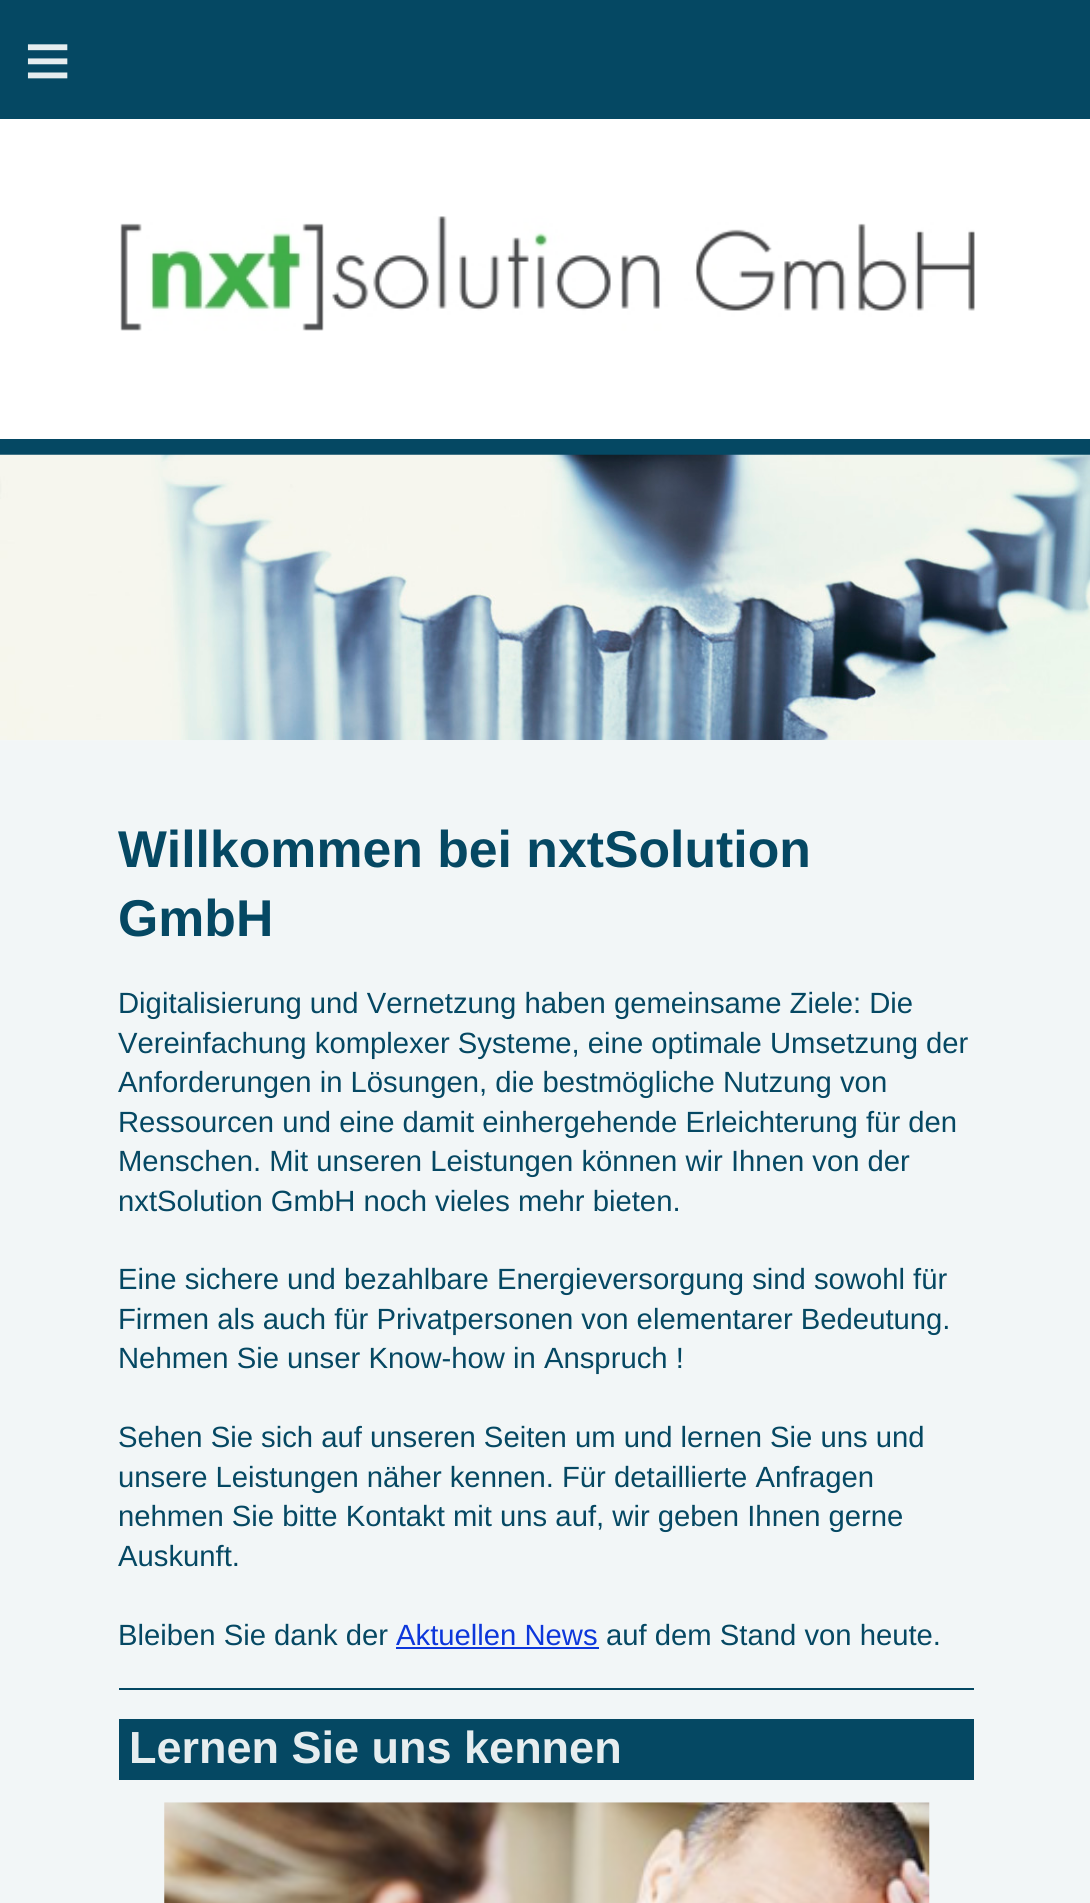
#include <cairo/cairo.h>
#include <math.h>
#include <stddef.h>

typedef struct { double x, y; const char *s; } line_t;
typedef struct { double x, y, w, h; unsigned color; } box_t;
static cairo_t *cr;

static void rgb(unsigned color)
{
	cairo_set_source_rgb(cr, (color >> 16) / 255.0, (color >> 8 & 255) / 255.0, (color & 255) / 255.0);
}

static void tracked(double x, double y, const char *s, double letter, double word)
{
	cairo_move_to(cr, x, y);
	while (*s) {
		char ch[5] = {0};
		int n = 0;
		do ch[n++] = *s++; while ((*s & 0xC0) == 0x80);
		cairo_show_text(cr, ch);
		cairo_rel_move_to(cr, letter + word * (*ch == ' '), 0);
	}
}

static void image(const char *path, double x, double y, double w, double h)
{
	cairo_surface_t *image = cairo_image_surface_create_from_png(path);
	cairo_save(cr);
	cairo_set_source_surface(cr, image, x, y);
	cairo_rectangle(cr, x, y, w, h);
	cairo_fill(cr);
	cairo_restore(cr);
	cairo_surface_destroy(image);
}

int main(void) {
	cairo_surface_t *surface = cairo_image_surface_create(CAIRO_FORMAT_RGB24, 1090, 1903);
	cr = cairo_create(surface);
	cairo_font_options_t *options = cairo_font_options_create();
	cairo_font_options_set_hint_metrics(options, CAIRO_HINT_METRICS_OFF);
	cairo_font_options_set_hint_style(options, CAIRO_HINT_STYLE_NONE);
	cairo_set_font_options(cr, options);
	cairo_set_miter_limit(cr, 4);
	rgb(0xf2f6f7);
	cairo_paint(cr);
	{
		static const box_t items[] = {
			{0, 0, 1090, 119, 0x054863},
			{0, 119, 1090, 320, 0xffffff},
			{0, 439, 1090, 16, 0x054863},
		};
		for (size_t i = 0; i < sizeof items / sizeof *items; i++) {
			rgb(items[i].color);
			cairo_rectangle(cr, items[i].x, items[i].y, items[i].w, items[i].h);
			cairo_fill(cr);
		}
	}
	image("img/1.png", 120, 216, 855, 115);
	image("img/2.png", 0, 454, 1090, 287);
	{
		static const box_t items[] = {
			{231, 740, 594, 1, 0xf2f6f7},
			{396, 1647, 203, 2, 0x0d37db},
			{119, 1688, 855, 2, 0x054863},
			{119, 1719, 855, 61, 0x054863},
		};
		for (size_t i = 0; i < sizeof items / sizeof *items; i++) {
			rgb(items[i].color);
			cairo_rectangle(cr, items[i].x, items[i].y, items[i].w, items[i].h);
			cairo_fill(cr);
		}
	}
	image("img/3.png", 164, 1802, 766, 101);
	cairo_select_font_face(cr, "Liberation Sans", CAIRO_FONT_SLANT_NORMAL, CAIRO_FONT_WEIGHT_NORMAL);
	cairo_set_font_size(cr, 81);
	rgb(0xe6edef);
	tracked(24, 88, "≡", 24, 0);
	cairo_select_font_face(cr, "Liberation Sans", CAIRO_FONT_SLANT_NORMAL, CAIRO_FONT_WEIGHT_BOLD);
	cairo_set_font_size(cr, 51.75);
	rgb(0x054863);
	cairo_move_to(cr, 118, 867);
	cairo_show_text(cr, "Willkommen bei nxtSolution");
	cairo_move_to(cr, 118, 936);
	cairo_show_text(cr, "GmbH");
	cairo_select_font_face(cr, "Liberation Sans", CAIRO_FONT_SLANT_NORMAL, CAIRO_FONT_WEIGHT_NORMAL);
	cairo_set_font_size(cr, 29.25);
	{
		static const line_t items[] = {
			{118, 1013, "Digitalisierung und Vernetzung haben gemeinsame Ziele: Die"},
			{118, 1053, "Vereinfachung komplexer Systeme, eine optimale Umsetzung der"},
			{118, 1092, "Anforderungen in Lösungen, die bestmögliche Nutzung von"},
			{118, 1132, "Ressourcen und eine damit einhergehende Erleichterung für den"},
			{118, 1171, "Menschen. Mit unseren Leistungen können wir Ihnen von der"},
			{118, 1211, "nxtSolution GmbH noch vieles mehr bieten."},
			{118, 1289, "Eine sichere und bezahlbare Energieversorgung sind sowohl für"},
			{118, 1329, "Firmen als auch für Privatpersonen von elementarer Bedeutung."},
			{118, 1368, "Nehmen Sie unser Know-how in Anspruch !"},
			{118, 1447, "Sehen Sie sich auf unseren Seiten um und lernen Sie uns und"},
			{118, 1487, "unsere Leistungen näher kennen. Für detaillierte Anfragen"},
			{118, 1526, "nehmen Sie bitte Kontakt mit uns auf, wir geben Ihnen gerne"},
			{118, 1566, "Auskunft."},
			{118, 1645, "Bleiben Sie dank der"},
		};
		for (size_t i = 0; i < sizeof items / sizeof *items; i++) {
			cairo_move_to(cr, items[i].x, items[i].y);
			cairo_show_text(cr, items[i].s);
		}
	}
	rgb(0x0d37db);
	cairo_move_to(cr, 396, 1645);
	cairo_show_text(cr, "Aktuellen News");
	rgb(0x054863);
	cairo_move_to(cr, 606, 1645);
	cairo_show_text(cr, "auf dem Stand von heute.");
	cairo_select_font_face(cr, "Liberation Sans", CAIRO_FONT_SLANT_NORMAL, CAIRO_FONT_WEIGHT_BOLD);
	cairo_set_font_size(cr, 45);
	rgb(0xe6edef);
	cairo_move_to(cr, 129, 1763);
	cairo_show_text(cr, "Lernen Sie uns kennen");
	cairo_surface_write_to_png(surface, "page.png");
	cairo_font_options_destroy(options);
	cairo_destroy(cr);
	cairo_surface_destroy(surface);
	return 0;
}
